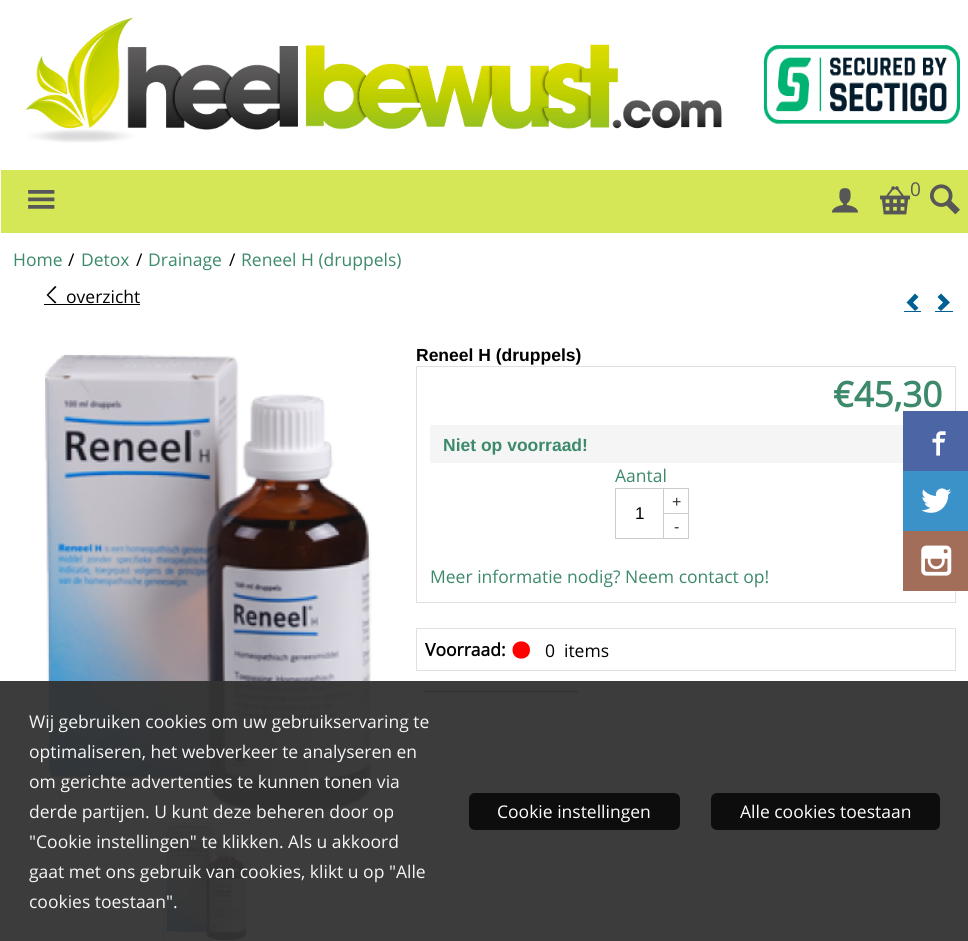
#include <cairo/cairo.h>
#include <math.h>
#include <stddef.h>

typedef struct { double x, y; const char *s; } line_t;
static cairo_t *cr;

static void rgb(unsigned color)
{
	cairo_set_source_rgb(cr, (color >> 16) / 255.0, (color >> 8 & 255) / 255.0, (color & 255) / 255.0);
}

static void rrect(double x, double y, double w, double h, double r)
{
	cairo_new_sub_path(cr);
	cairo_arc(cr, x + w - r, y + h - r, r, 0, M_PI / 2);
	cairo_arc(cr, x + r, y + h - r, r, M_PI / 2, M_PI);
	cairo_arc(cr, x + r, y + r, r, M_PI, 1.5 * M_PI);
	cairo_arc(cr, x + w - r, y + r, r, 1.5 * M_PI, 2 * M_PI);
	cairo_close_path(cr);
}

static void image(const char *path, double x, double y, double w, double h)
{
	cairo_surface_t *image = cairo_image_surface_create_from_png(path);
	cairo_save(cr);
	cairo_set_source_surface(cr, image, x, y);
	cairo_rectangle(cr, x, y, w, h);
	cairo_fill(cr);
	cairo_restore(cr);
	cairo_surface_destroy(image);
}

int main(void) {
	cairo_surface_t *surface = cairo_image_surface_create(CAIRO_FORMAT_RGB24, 968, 941);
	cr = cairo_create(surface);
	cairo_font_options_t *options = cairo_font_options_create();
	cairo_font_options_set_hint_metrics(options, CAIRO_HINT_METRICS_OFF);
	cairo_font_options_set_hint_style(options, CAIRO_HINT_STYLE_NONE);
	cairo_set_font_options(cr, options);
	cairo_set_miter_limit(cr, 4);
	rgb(0xffffff);
	cairo_paint(cr);
	image("img/1.png", 25, 17, 697, 126);
	image("img/2.png", 763, 45, 197, 79);
	rgb(0xd5e657);
	cairo_rectangle(cr, 1, 170, 967, 63);
	cairo_fill(cr);
	image("img/3.png", 28, 190, 27, 19);
	image("img/4.png", 831, 188, 28, 25);
	image("img/5.png", 880, 186, 30, 29);
	image("img/6.png", 930, 184, 30, 31);
	rgb(0x000000);
	cairo_rectangle(cr, 44, 304, 96, 1);
	cairo_fill(cr);
	cairo_new_path(cr);
	cairo_move_to(cr, 55, 303.5);
	cairo_line_to(cr, 56.5, 302.5);
	cairo_line_to(cr, 48.5, 295);
	cairo_line_to(cr, 56.5, 287);
	cairo_line_to(cr, 55, 286);
	cairo_line_to(cr, 46.5, 295);
	cairo_close_path(cr);
	cairo_fill(cr);
	rgb(0x006093);
	cairo_new_path(cr);
	cairo_move_to(cr, 915, 311);
	cairo_line_to(cr, 918.5, 308);
	cairo_line_to(cr, 913, 302.5);
	cairo_line_to(cr, 918.5, 297);
	cairo_line_to(cr, 915, 293.5);
	cairo_line_to(cr, 906.5, 302.5);
	cairo_close_path(cr);
	cairo_fill(cr);
	cairo_rectangle(cr, 904, 311, 17, 1);
	cairo_fill(cr);
	cairo_new_path(cr);
	cairo_move_to(cr, 941, 293.5);
	cairo_line_to(cr, 937.5, 297);
	cairo_line_to(cr, 943, 302.5);
	cairo_line_to(cr, 937.5, 308);
	cairo_line_to(cr, 941, 311);
	cairo_line_to(cr, 950, 302.5);
	cairo_close_path(cr);
	cairo_fill(cr);
	cairo_rectangle(cr, 935, 311, 18, 1);
	cairo_fill(cr);
	image("img/7.png", 44, 354, 329, 459);
	cairo_rectangle(cr, 163.5, 823.5, 86, 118);
	rgb(0xd6d6d6);
	cairo_set_line_width(cr, 1);
	cairo_stroke(cr);
	image("img/8.png", 165, 825, 82, 116);
	cairo_rectangle(cr, 416.5, 366.5, 539, 236);
	rgb(0xe0e0e0);
	cairo_stroke(cr);
	rgb(0xf5f5f5);
	cairo_rectangle(cr, 430, 425, 473, 38);
	cairo_fill(cr);
	cairo_rectangle(cr, 615.5, 488.5, 73, 50);
	rgb(0xcccccc);
	cairo_stroke(cr);
	cairo_rectangle(cr, 663, 513, 26, 1);
	cairo_fill(cr);
	cairo_rectangle(cr, 663, 488, 1, 50);
	cairo_fill(cr);
	cairo_rectangle(cr, 416.5, 628.5, 539, 42);
	rgb(0xe0e0e0);
	cairo_stroke(cr);
	rgb(0xff0000);
	cairo_new_path(cr);
	cairo_move_to(cr, 512.5, 650);
	cairo_curve_to(cr, 512.5, 638.5, 530, 638.5, 530, 650);
	cairo_curve_to(cr, 530, 661.5, 512.5, 661.5, 512.5, 650);
	cairo_close_path(cr);
	cairo_fill(cr);
	rgb(0x000000);
	cairo_rectangle(cr, 423, 691, 155, 1);
	cairo_fill(cr);
	rgb(0x3b92c8);
	cairo_rectangle(cr, 903, 471, 65, 60);
	cairo_fill(cr);
	image("img/10.png", 921, 488, 31, 25);
	rgb(0xa26e59);
	cairo_rectangle(cr, 903, 531, 65, 60);
	cairo_fill(cr);
	image("img/11.png", 921, 545, 31, 31);
	cairo_set_source_rgba(cr, 0.2, 0.2, 0.2, 0.95);
	cairo_rectangle(cr, 0, 681, 968, 260);
	cairo_fill(cr);
	rgb(0x0d0d0d);
	rrect(469, 793, 211, 37, 6);
	cairo_fill(cr);
	rrect(711, 793, 229, 37, 6);
	cairo_fill(cr);
	cairo_select_font_face(cr, "Open Sans", CAIRO_FONT_SLANT_NORMAL, CAIRO_FONT_WEIGHT_NORMAL);
	cairo_set_font_size(cr, 19);
	rgb(0x575757);
	cairo_move_to(cr, 910, 196);
	cairo_show_text(cr, "0");
	cairo_set_font_size(cr, 17.5);
	rgb(0x3d8a6b);
	cairo_move_to(cr, 13, 266);
	cairo_show_text(cr, "Home");
	rgb(0x000000);
	cairo_move_to(cr, 68, 266);
	cairo_show_text(cr, "/");
	rgb(0x3d8a6b);
	cairo_move_to(cr, 81, 266);
	cairo_show_text(cr, "Detox");
	rgb(0x000000);
	cairo_move_to(cr, 136, 266);
	cairo_show_text(cr, "/");
	rgb(0x3d8a6b);
	cairo_move_to(cr, 148, 266);
	cairo_show_text(cr, "Drainage");
	rgb(0x000000);
	cairo_move_to(cr, 229, 266);
	cairo_show_text(cr, "/");
	rgb(0x3d8a6b);
	cairo_move_to(cr, 241, 266);
	cairo_show_text(cr, "Reneel H (druppels)");
	rgb(0x000000);
	cairo_move_to(cr, 66, 303);
	cairo_show_text(cr, "overzicht");
	cairo_select_font_face(cr, "Liberation Sans", CAIRO_FONT_SLANT_NORMAL, CAIRO_FONT_WEIGHT_BOLD);
	cairo_move_to(cr, 416, 361);
	cairo_show_text(cr, "Reneel H (druppels)");
	cairo_select_font_face(cr, "Open Sans", CAIRO_FONT_SLANT_NORMAL, CAIRO_FONT_WEIGHT_BOLD);
	cairo_set_font_size(cr, 35);
	rgb(0x3d8a6b);
	cairo_move_to(cr, 833, 407);
	cairo_show_text(cr, "€45,30");
	cairo_select_font_face(cr, "Liberation Sans", CAIRO_FONT_SLANT_NORMAL, CAIRO_FONT_WEIGHT_BOLD);
	cairo_set_font_size(cr, 17.5);
	cairo_move_to(cr, 443, 451);
	cairo_show_text(cr, "Niet op voorraad!");
	cairo_select_font_face(cr, "Open Sans", CAIRO_FONT_SLANT_NORMAL, CAIRO_FONT_WEIGHT_NORMAL);
	cairo_move_to(cr, 615, 482);
	cairo_show_text(cr, "Aantal");
	cairo_select_font_face(cr, "Liberation Sans", CAIRO_FONT_SLANT_NORMAL, CAIRO_FONT_WEIGHT_NORMAL);
	cairo_set_font_size(cr, 17);
	rgb(0x000000);
	cairo_move_to(cr, 635, 519);
	cairo_show_text(cr, "1");
	cairo_set_font_size(cr, 16);
	rgb(0x333333);
	cairo_move_to(cr, 672, 507);
	cairo_show_text(cr, "+");
	cairo_move_to(cr, 674, 532);
	cairo_show_text(cr, "-");
	cairo_select_font_face(cr, "Open Sans", CAIRO_FONT_SLANT_NORMAL, CAIRO_FONT_WEIGHT_NORMAL);
	cairo_set_font_size(cr, 17.5);
	rgb(0x3d8a6b);
	cairo_move_to(cr, 430, 583);
	cairo_show_text(cr, "Meer informatie nodig? Neem contact op!");
	cairo_select_font_face(cr, "Open Sans", CAIRO_FONT_SLANT_NORMAL, CAIRO_FONT_WEIGHT_BOLD);
	rgb(0x000000);
	cairo_move_to(cr, 425, 656);
	cairo_show_text(cr, "Voorraad:");
	cairo_select_font_face(cr, "Open Sans", CAIRO_FONT_SLANT_NORMAL, CAIRO_FONT_WEIGHT_NORMAL);
	cairo_move_to(cr, 545, 657);
	cairo_show_text(cr, "0");
	cairo_move_to(cr, 564, 657);
	cairo_show_text(cr, "items");
	rgb(0x4c65a5);
	cairo_rectangle(cr, 903, 411, 65, 60);
	cairo_fill(cr);
	image("img/9.png", 932, 431, 14, 25);
	rgb(0xf5f5f5);
	{
		static const line_t items[] = {
			{29, 728, "Wij gebruiken cookies om uw gebruikservaring te"},
			{29, 758, "optimaliseren, het webverkeer te analyseren en"},
			{29, 788, "om gerichte advertenties te kunnen tonen via"},
			{29, 818, "derde partijen. U kunt deze beheren door op"},
			{29, 848, "\"Cookie instellingen\" te klikken. Als u akkoord"},
			{29, 878, "gaat met ons gebruik van cookies, klikt u op \"Alle"},
			{29, 908, "cookies toestaan\"."},
		};
		for (size_t i = 0; i < sizeof items / sizeof *items; i++) {
			cairo_move_to(cr, items[i].x, items[i].y);
			cairo_show_text(cr, items[i].s);
		}
	}
	rgb(0xffffff);
	cairo_move_to(cr, 497, 818);
	cairo_show_text(cr, "Cookie instellingen");
	cairo_move_to(cr, 740, 818);
	cairo_show_text(cr, "Alle cookies toestaan");
	cairo_surface_write_to_png(surface, "page.png");
	cairo_font_options_destroy(options);
	cairo_destroy(cr);
	cairo_surface_destroy(surface);
	return 0;
}
